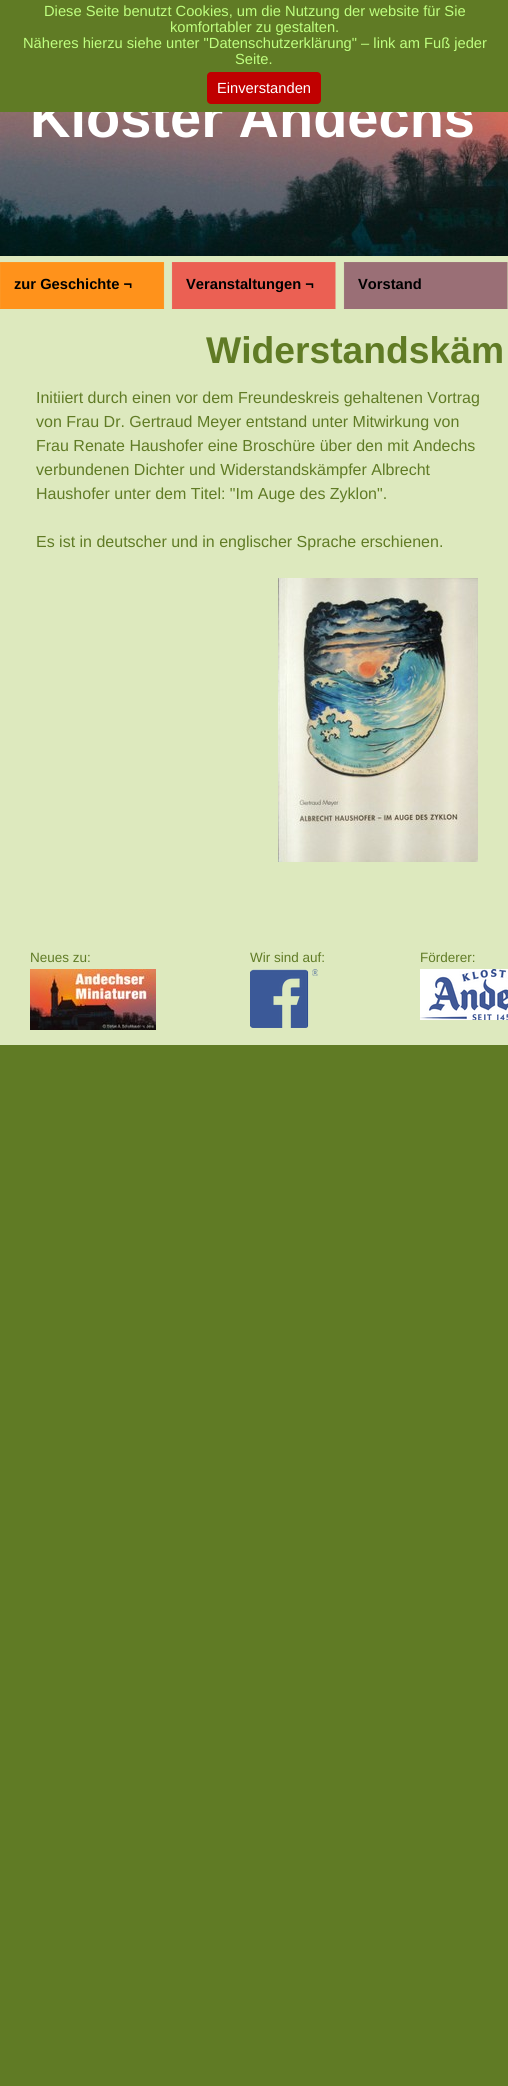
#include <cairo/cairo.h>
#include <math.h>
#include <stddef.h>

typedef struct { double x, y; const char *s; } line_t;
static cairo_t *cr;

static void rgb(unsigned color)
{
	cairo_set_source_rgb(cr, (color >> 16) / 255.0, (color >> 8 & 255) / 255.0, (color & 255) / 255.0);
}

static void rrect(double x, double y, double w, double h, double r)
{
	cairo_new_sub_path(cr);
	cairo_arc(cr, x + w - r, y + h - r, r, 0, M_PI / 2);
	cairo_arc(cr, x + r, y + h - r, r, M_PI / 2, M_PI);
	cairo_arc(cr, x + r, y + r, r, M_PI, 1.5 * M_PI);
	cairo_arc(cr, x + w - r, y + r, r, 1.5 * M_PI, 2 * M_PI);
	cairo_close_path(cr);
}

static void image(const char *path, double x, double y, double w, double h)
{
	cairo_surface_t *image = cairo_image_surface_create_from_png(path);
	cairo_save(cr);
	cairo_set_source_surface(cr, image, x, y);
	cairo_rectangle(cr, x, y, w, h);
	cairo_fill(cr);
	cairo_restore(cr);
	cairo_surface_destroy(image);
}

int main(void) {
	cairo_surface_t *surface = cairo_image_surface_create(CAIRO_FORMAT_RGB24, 508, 2086);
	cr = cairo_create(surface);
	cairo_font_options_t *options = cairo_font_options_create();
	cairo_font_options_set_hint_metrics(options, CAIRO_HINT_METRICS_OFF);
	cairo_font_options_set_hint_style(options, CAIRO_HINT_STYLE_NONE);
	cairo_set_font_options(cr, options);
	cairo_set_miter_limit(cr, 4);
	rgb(0x607b25);
	cairo_paint(cr);
	rgb(0xdde9be);
	cairo_rectangle(cr, 0, 256, 508, 789);
	cairo_fill(cr);
	image("img/1.png", 0, 112, 508, 144);
	image("img/2.png", 0, 262, 508, 47);
	image("img/3.png", 278, 578, 200, 284);
	image("img/4.png", 30, 969, 126, 61);
	image("img/5.png", 250, 969, 68, 59);
	image("img/6.png", 420, 969, 88, 51);
	cairo_select_font_face(cr, "Liberation Sans", CAIRO_FONT_SLANT_NORMAL, CAIRO_FONT_WEIGHT_NORMAL);
	cairo_set_font_size(cr, 14.7);
	rgb(0xbfff80);
	{
		static const line_t items[] = {
			{44, 16, "Diese Seite benutzt Cookies, um die Nutzung der website für Sie"},
			{170, 32, "komfortabler zu gestalten."},
			{23, 48, "Näheres hierzu siehe unter \"Datenschutzerklärung\" – link am Fuß jeder"},
			{235, 64, "Seite."},
		};
		for (size_t i = 0; i < sizeof items / sizeof *items; i++) {
			cairo_move_to(cr, items[i].x, items[i].y);
			cairo_show_text(cr, items[i].s);
		}
	}
	cairo_select_font_face(cr, "Liberation Sans", CAIRO_FONT_SLANT_NORMAL, CAIRO_FONT_WEIGHT_BOLD);
	cairo_set_font_size(cr, 56);
	rgb(0xffffff);
	cairo_move_to(cr, 30, 137);
	cairo_show_text(cr, "Kloster Andechs");
	rgb(0x607b25);
	cairo_rectangle(cr, 33, 96, 438, 16);
	cairo_fill(cr);
	rgb(0xc00000);
	rrect(207, 72, 114, 32, 4);
	cairo_fill(cr);
	cairo_select_font_face(cr, "Liberation Sans", CAIRO_FONT_SLANT_NORMAL, CAIRO_FONT_WEIGHT_NORMAL);
	cairo_set_font_size(cr, 14.7);
	rgb(0xffffff);
	cairo_move_to(cr, 217, 93);
	cairo_show_text(cr, "Einverstanden");
	cairo_select_font_face(cr, "Liberation Sans", CAIRO_FONT_SLANT_NORMAL, CAIRO_FONT_WEIGHT_BOLD);
	rgb(0x000000);
	{
		static const line_t items[] = {
			{14, 289, "zur Geschichte ¬"},
			{186, 289, "Veranstaltungen ¬"},
			{358, 289, "Vorstand"},
		};
		for (size_t i = 0; i < sizeof items / sizeof *items; i++) {
			cairo_move_to(cr, items[i].x, items[i].y);
			cairo_show_text(cr, items[i].s);
		}
	}
	cairo_set_font_size(cr, 37.25);
	rgb(0x607b25);
	cairo_move_to(cr, 206, 363);
	cairo_show_text(cr, "Widerstandskäm");
	cairo_select_font_face(cr, "Liberation Sans", CAIRO_FONT_SLANT_NORMAL, CAIRO_FONT_WEIGHT_NORMAL);
	cairo_set_font_size(cr, 16);
	{
		static const line_t items[] = {
			{36, 403, "Initiiert durch einen vor dem Freundeskreis gehaltenen Vortrag"},
			{36, 427, "von Frau Dr. Gertraud Meyer entstand unter Mitwirkung von"},
			{36, 451, "Frau Renate Haushofer eine Broschüre über den mit Andechs"},
			{36, 475, "verbundenen Dichter und Widerstandskämpfer Albrecht"},
			{36, 499, "Haushofer unter dem Titel: \"Im Auge des Zyklon\"."},
			{36, 547, "Es ist in deutscher und in englischer Sprache erschienen."},
		};
		for (size_t i = 0; i < sizeof items / sizeof *items; i++) {
			cairo_move_to(cr, items[i].x, items[i].y);
			cairo_show_text(cr, items[i].s);
		}
	}
	cairo_set_font_size(cr, 13.5);
	{
		static const line_t items[] = {
			{30, 962, "Neues zu:"},
			{250, 962, "Wir sind auf:"},
			{420, 962, "Förderer:"},
		};
		for (size_t i = 0; i < sizeof items / sizeof *items; i++) {
			cairo_move_to(cr, items[i].x, items[i].y);
			cairo_show_text(cr, items[i].s);
		}
	}
	cairo_surface_write_to_png(surface, "page.png");
	cairo_font_options_destroy(options);
	cairo_destroy(cr);
	cairo_surface_destroy(surface);
	return 0;
}
